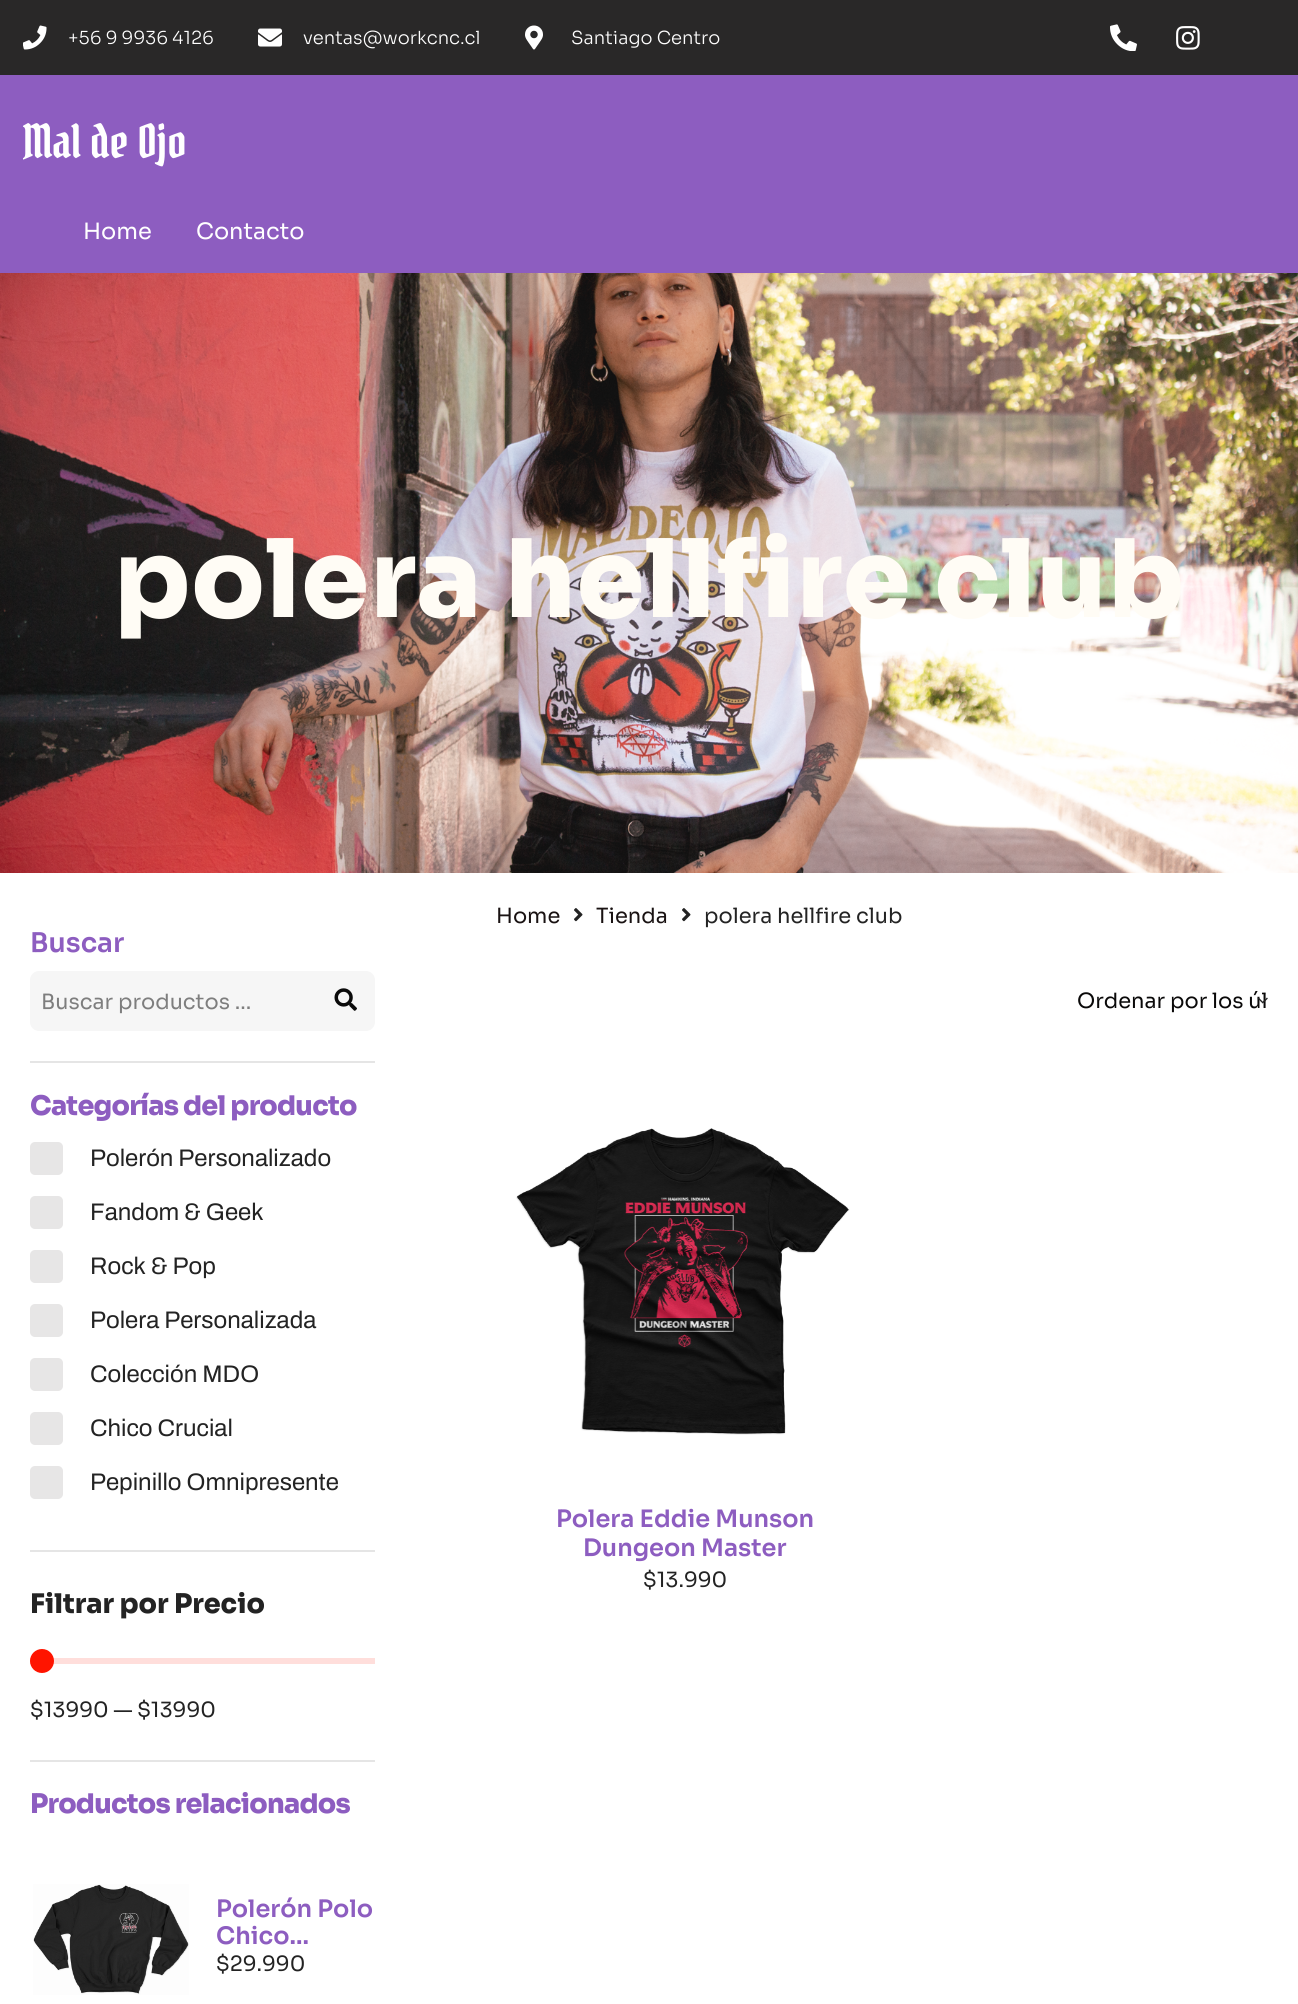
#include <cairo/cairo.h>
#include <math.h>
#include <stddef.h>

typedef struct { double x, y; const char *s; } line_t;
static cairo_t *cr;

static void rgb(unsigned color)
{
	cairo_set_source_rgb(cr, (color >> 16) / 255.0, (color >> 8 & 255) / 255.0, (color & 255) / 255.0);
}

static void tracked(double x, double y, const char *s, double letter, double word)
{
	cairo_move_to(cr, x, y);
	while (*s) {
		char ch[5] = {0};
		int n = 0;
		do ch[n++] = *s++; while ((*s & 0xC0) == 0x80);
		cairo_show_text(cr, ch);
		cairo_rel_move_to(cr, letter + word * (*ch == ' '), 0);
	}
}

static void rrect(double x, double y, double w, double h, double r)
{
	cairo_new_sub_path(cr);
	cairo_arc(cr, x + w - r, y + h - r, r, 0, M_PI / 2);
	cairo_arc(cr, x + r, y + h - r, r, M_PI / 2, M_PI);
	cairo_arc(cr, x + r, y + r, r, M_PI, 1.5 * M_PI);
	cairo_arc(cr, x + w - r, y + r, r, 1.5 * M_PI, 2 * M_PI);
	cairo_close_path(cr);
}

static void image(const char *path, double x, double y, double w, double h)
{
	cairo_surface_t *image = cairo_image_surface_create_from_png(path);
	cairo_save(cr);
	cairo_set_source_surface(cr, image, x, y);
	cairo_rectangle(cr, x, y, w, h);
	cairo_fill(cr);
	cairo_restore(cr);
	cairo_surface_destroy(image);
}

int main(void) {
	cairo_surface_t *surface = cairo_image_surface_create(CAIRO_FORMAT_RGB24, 1298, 2004);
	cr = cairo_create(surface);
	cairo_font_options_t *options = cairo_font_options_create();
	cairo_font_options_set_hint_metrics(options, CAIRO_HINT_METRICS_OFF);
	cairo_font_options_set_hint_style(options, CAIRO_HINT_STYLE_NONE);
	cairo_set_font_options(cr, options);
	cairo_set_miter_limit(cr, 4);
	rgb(0xffffff);
	cairo_paint(cr);
	rgb(0x292828);
	cairo_rectangle(cr, 0, 0, 1298, 75);
	cairo_fill(cr);
	image("img/1.png", 23, 25, 24, 25);
	image("img/2.png", 258, 28, 24, 19);
	image("img/3.png", 525, 25, 18, 25);
	image("img/4.png", 1110, 24, 27, 27);
	image("img/5.png", 1176, 26, 24, 24);
	rgb(0x8d5dc0);
	cairo_rectangle(cr, 0, 75, 1298, 198);
	cairo_fill(cr);
	image("img/6.png", 23, 123, 162, 44);
	image("img/7.png", 0, 273, 1298, 600);
	rgb(0xf6f6f6);
	cairo_new_path(cr);
	cairo_move_to(cr, 39, 971);
	cairo_line_to(cr, 312, 971);
	cairo_line_to(cr, 312, 1031);
	cairo_line_to(cr, 39, 1031);
	cairo_curve_to(cr, 34, 1031, 30, 1027, 30, 1022);
	cairo_line_to(cr, 30, 980);
	cairo_curve_to(cr, 30, 975, 34, 971, 39, 971);
	cairo_close_path(cr);
	cairo_fill(cr);
	cairo_new_path(cr);
	cairo_move_to(cr, 312, 971);
	cairo_line_to(cr, 366, 971);
	cairo_curve_to(cr, 371, 971, 375, 975, 375, 980);
	cairo_line_to(cr, 375, 1022);
	cairo_curve_to(cr, 375, 1027, 371, 1031, 366, 1031);
	cairo_line_to(cr, 312, 1031);
	cairo_close_path(cr);
	cairo_fill(cr);
	image("img/8.png", 334, 988, 23, 23);
	rgb(0xe5e5e5);
	cairo_rectangle(cr, 30, 1061, 345, 2);
	cairo_fill(cr);
	rgb(0xe7e6e6);
	rrect(30, 1142, 33, 33, 5);
	cairo_fill(cr);
	rrect(30, 1196, 33, 33, 5);
	cairo_fill(cr);
	rrect(30, 1250, 33, 33, 5);
	cairo_fill(cr);
	rrect(30, 1304, 33, 33, 5);
	cairo_fill(cr);
	rrect(30, 1358, 33, 33, 5);
	cairo_fill(cr);
	rrect(30, 1412, 33, 33, 5);
	cairo_fill(cr);
	rrect(30, 1466, 33, 33, 5);
	cairo_fill(cr);
	rgb(0xe5e5e5);
	cairo_rectangle(cr, 30, 1550, 345, 2);
	cairo_fill(cr);
	rgb(0xffdedb);
	cairo_rectangle(cr, 30, 1658, 345, 6);
	cairo_fill(cr);
	rgb(0xff1400);
	cairo_arc(cr, 42, 1661, 12, 0, 2 * M_PI);
	cairo_fill(cr);
	rgb(0xe5e5e5);
	cairo_rectangle(cr, 30, 1760, 345, 2);
	cairo_fill(cr);
	image("img/9.png", 33, 1884, 156, 111);
	image("img/10.png", 574, 908, 9, 14);
	image("img/10.png", 682, 908, 9, 14);
	image("img/12.png", 516, 1128, 334, 307);
	cairo_select_font_face(cr, "Sora Light", CAIRO_FONT_SLANT_NORMAL, CAIRO_FONT_WEIGHT_NORMAL);
	cairo_set_font_size(cr, 18);
	rgb(0xffffff);
	{
		static const line_t items[] = {
			{68, 44, "+56 9 9936 4126"},
			{303, 44, "ventas@workcnc.cl"},
			{571, 44, "Santiago Centro"},
		};
		for (size_t i = 0; i < sizeof items / sizeof *items; i++) {
			cairo_move_to(cr, items[i].x, items[i].y);
			cairo_show_text(cr, items[i].s);
		}
	}
	cairo_select_font_face(cr, "Sora", CAIRO_FONT_SLANT_NORMAL, CAIRO_FONT_WEIGHT_NORMAL);
	cairo_set_font_size(cr, 22.5);
	cairo_move_to(cr, 83, 239);
	cairo_show_text(cr, "Home");
	cairo_move_to(cr, 196, 239);
	cairo_show_text(cr, "Contacto");
	cairo_select_font_face(cr, "Sora ExtraBold", CAIRO_FONT_SLANT_NORMAL, CAIRO_FONT_WEIGHT_NORMAL);
	cairo_set_font_size(cr, 108);
	rgb(0xfffcf5);
	tracked(114, 617, "polera hellfire club", 0.75, 0);
	cairo_select_font_face(cr, "Sora SemiBold", CAIRO_FONT_SLANT_NORMAL, CAIRO_FONT_WEIGHT_NORMAL);
	cairo_set_font_size(cr, 27);
	rgb(0x8d5dc0);
	cairo_move_to(cr, 30, 952);
	cairo_show_text(cr, "Buscar");
	cairo_select_font_face(cr, "Sora", CAIRO_FONT_SLANT_NORMAL, CAIRO_FONT_WEIGHT_NORMAL);
	cairo_set_font_size(cr, 21);
	rgb(0x7e7e7e);
	cairo_move_to(cr, 41, 1009);
	cairo_show_text(cr, "Buscar productos ...");
	cairo_select_font_face(cr, "Sora ExtraBold", CAIRO_FONT_SLANT_NORMAL, CAIRO_FONT_WEIGHT_NORMAL);
	cairo_set_font_size(cr, 27);
	rgb(0x8d5dc0);
	tracked(30, 1115, "Categorías del producto", -0.75, 0);
	cairo_select_font_face(cr, "Archivo", CAIRO_FONT_SLANT_NORMAL, CAIRO_FONT_WEIGHT_NORMAL);
	cairo_set_font_size(cr, 24);
	rgb(0x232323);
	{
		static const line_t items[] = {
			{90, 1166, "Polerón Personalizado"},
			{90, 1220, "Fandom & Geek"},
			{90, 1274, "Rock & Pop"},
			{90, 1328, "Polera Personalizada"},
			{90, 1382, "Colección MDO"},
			{90, 1436, "Chico Crucial"},
			{90, 1490, "Pepinillo Omnipresente"},
		};
		for (size_t i = 0; i < sizeof items / sizeof *items; i++) {
			cairo_move_to(cr, items[i].x, items[i].y);
			cairo_show_text(cr, items[i].s);
		}
	}
	cairo_select_font_face(cr, "Sora ExtraBold", CAIRO_FONT_SLANT_NORMAL, CAIRO_FONT_WEIGHT_NORMAL);
	cairo_set_font_size(cr, 27);
	cairo_move_to(cr, 30, 1613);
	cairo_show_text(cr, "Filtrar por Precio");
	cairo_select_font_face(cr, "Sora", CAIRO_FONT_SLANT_NORMAL, CAIRO_FONT_WEIGHT_NORMAL);
	cairo_set_font_size(cr, 21);
	cairo_move_to(cr, 30, 1717);
	cairo_show_text(cr, "$13990 — $13990");
	cairo_select_font_face(cr, "Sora ExtraBold", CAIRO_FONT_SLANT_NORMAL, CAIRO_FONT_WEIGHT_NORMAL);
	cairo_set_font_size(cr, 27);
	rgb(0x8d5dc0);
	tracked(30, 1813, "Productos relacionados", -0.75, 0);
	cairo_select_font_face(cr, "Sora SemiBold", CAIRO_FONT_SLANT_NORMAL, CAIRO_FONT_WEIGHT_NORMAL);
	cairo_set_font_size(cr, 24);
	cairo_move_to(cr, 216, 1917);
	cairo_show_text(cr, "Polerón Polo");
	cairo_move_to(cr, 216, 1944);
	cairo_show_text(cr, "Chico...");
	cairo_select_font_face(cr, "Sora", CAIRO_FONT_SLANT_NORMAL, CAIRO_FONT_WEIGHT_NORMAL);
	cairo_set_font_size(cr, 21);
	rgb(0x232323);
	cairo_move_to(cr, 216, 1971);
	cairo_show_text(cr, "$29.990");
	rgb(0x191212);
	cairo_move_to(cr, 496, 923);
	cairo_show_text(cr, "Home");
	cairo_move_to(cr, 596, 923);
	cairo_show_text(cr, "Tienda");
	rgb(0x232323);
	cairo_move_to(cr, 704, 923);
	cairo_show_text(cr, "polera hellfire club");
	rgb(0x0a0909);
	cairo_move_to(cr, 1077, 1008);
	cairo_show_text(cr, "Ordenar por los úl");
	image("img/11.png", 1257, 997, 11, 7);
	cairo_select_font_face(cr, "Sora SemiBold", CAIRO_FONT_SLANT_NORMAL, CAIRO_FONT_WEIGHT_NORMAL);
	cairo_set_font_size(cr, 24);
	rgb(0x8d5dc0);
	cairo_move_to(cr, 556, 1527);
	cairo_show_text(cr, "Polera Eddie Munson");
	cairo_move_to(cr, 583, 1556);
	cairo_show_text(cr, "Dungeon Master");
	cairo_select_font_face(cr, "Sora", CAIRO_FONT_SLANT_NORMAL, CAIRO_FONT_WEIGHT_NORMAL);
	cairo_set_font_size(cr, 21);
	rgb(0x232323);
	cairo_move_to(cr, 643, 1587);
	cairo_show_text(cr, "$13.990");
	cairo_surface_write_to_png(surface, "page.png");
	cairo_font_options_destroy(options);
	cairo_destroy(cr);
	cairo_surface_destroy(surface);
	return 0;
}
